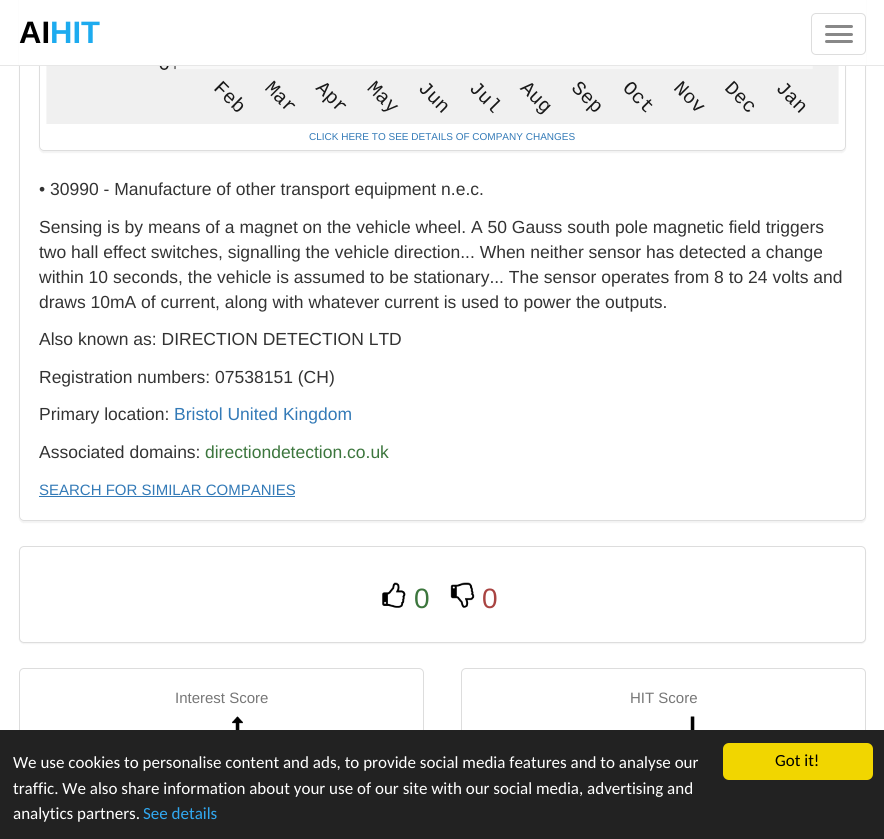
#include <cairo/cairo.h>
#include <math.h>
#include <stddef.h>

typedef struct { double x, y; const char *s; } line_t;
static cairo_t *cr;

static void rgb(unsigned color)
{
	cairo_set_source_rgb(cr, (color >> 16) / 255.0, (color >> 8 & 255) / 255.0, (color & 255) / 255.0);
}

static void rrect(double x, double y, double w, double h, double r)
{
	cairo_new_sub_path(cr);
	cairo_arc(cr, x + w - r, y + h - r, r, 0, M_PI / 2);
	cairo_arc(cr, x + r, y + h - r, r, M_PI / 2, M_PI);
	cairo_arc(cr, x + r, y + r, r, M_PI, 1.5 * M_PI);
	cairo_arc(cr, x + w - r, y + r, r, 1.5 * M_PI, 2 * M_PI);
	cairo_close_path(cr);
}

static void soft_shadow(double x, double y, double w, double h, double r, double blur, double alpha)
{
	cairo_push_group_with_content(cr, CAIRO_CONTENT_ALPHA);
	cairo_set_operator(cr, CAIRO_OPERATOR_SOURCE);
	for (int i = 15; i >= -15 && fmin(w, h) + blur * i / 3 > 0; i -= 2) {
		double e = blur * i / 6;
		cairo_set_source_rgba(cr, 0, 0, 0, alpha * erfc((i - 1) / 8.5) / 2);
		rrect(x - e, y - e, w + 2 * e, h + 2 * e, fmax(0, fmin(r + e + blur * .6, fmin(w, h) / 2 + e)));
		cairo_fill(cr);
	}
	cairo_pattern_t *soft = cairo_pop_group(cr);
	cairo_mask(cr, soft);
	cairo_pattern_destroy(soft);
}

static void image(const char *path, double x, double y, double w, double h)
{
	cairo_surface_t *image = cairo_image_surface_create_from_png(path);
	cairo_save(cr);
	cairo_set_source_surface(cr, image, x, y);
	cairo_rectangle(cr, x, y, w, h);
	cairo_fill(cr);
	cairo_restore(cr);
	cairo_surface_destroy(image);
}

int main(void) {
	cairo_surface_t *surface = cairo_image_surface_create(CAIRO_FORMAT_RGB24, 884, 839);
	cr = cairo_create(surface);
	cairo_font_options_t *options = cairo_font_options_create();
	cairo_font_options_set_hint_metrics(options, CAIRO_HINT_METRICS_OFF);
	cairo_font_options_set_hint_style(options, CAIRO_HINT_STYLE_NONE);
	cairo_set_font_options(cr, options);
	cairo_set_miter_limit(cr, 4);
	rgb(0xffffff);
	cairo_paint(cr);
	cairo_save(cr);
	cairo_set_fill_rule(cr, CAIRO_FILL_RULE_EVEN_ODD);
	cairo_new_path(cr);
	cairo_move_to(cr, 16, 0);
	cairo_line_to(cr, 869, 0);
	cairo_line_to(cr, 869, 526);
	cairo_line_to(cr, 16, 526);
	cairo_close_path(cr);
	cairo_move_to(cr, 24, -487);
	cairo_line_to(cr, 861, -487);
	cairo_curve_to(cr, 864, -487, 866, -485, 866, -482);
	cairo_line_to(cr, 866, 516);
	cairo_curve_to(cr, 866, 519, 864, 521, 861, 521);
	cairo_line_to(cr, 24, 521);
	cairo_curve_to(cr, 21, 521, 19, 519, 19, 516);
	cairo_line_to(cr, 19, -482);
	cairo_curve_to(cr, 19, -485, 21, -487, 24, -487);
	cairo_close_path(cr);
	cairo_clip(cr);
	rgb(0x000000);
	soft_shadow(19, -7, 847, 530, 5, 0.5, 0.05);
	cairo_restore(cr);
	rrect(19.5, -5.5, 846, 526, 4.5);
	rgb(0xdddddd);
	cairo_set_line_width(cr, 1);
	cairo_stroke(cr);
	cairo_save(cr);
	cairo_set_fill_rule(cr, CAIRO_FILL_RULE_EVEN_ODD);
	cairo_new_path(cr);
	cairo_move_to(cr, 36, 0);
	cairo_line_to(cr, 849, 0);
	cairo_line_to(cr, 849, 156);
	cairo_line_to(cr, 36, 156);
	cairo_close_path(cr);
	cairo_move_to(cr, 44, -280);
	cairo_line_to(cr, 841, -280);
	cairo_curve_to(cr, 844, -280, 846, -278, 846, -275);
	cairo_line_to(cr, 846, 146);
	cairo_curve_to(cr, 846, 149, 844, 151, 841, 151);
	cairo_line_to(cr, 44, 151);
	cairo_curve_to(cr, 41, 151, 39, 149, 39, 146);
	cairo_line_to(cr, 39, -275);
	cairo_curve_to(cr, 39, -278, 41, -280, 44, -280);
	cairo_close_path(cr);
	cairo_clip(cr);
	rgb(0x000000);
	soft_shadow(39, -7, 807, 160, 5, 0.5, 0.05);
	cairo_restore(cr);
	rrect(39.5, -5.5, 806, 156, 4.5);
	cairo_stroke(cr);
	rgb(0xffffff);
	cairo_rectangle(cr, 19, 0, 847, 65);
	cairo_fill(cr);
	rgb(0xe7e7e7);
	cairo_rectangle(cr, 0, 65, 884, 1);
	cairo_fill(cr);
	rrect(811.5, 13.5, 54, 41, 4.5);
	rgb(0xdddddd);
	cairo_stroke(cr);
	rgb(0x888888);
	rrect(825, 25, 28, 3, 1.5);
	cairo_fill(cr);
	rrect(825, 33, 28, 3, 1.5);
	cairo_fill(cr);
	rrect(825, 40, 28, 3, 1.5);
	cairo_fill(cr);
	image("img/1.png", 46, 66, 793, 58);
	rgb(0x337ab7);
	cairo_rectangle(cr, 39, 496, 256, 1);
	cairo_fill(cr);
	rgb(0x000000);
	soft_shadow(19, 548, 847, 96, 5, 0.5, 0.05);
	rgb(0xffffff);
	rrect(19.5, 546.5, 846, 96, 4.5);
	cairo_fill_preserve(cr);
	rgb(0xdddddd);
	cairo_stroke(cr);
	image("img/2.png", 382, 582, 24, 26);
	image("img/3.png", 450, 582, 25, 26);
	rrect(19.5, 668.5, 404, 95, 4.5);
	cairo_stroke(cr);
	image("img/4.png", 232, 716, 11, 14);
	rrect(461.5, 668.5, 404, 95, 4.5);
	cairo_stroke(cr);
	image("img/5.png", 690, 716, 5, 14);
	rgb(0x222222);
	cairo_rectangle(cr, 0, 730, 884, 109);
	cairo_fill(cr);
	rgb(0xf1d600);
	rrect(723, 743, 150, 37, 6);
	cairo_fill(cr);
	cairo_select_font_face(cr, "Liberation Sans", CAIRO_FONT_SLANT_NORMAL, CAIRO_FONT_WEIGHT_BOLD);
	cairo_set_font_size(cr, 31);
	rgb(0x000000);
	cairo_move_to(cr, 19, 43);
	cairo_show_text(cr, "AI");
	rgb(0x1dabef);
	cairo_move_to(cr, 50, 43);
	cairo_show_text(cr, "HIT");
	cairo_select_font_face(cr, "Liberation Sans", CAIRO_FONT_SLANT_NORMAL, CAIRO_FONT_WEIGHT_NORMAL);
	cairo_set_font_size(cr, 10);
	rgb(0x337ab7);
	cairo_move_to(cr, 309, 140);
	cairo_show_text(cr, "CLICK HERE TO SEE DETAILS OF COMPANY CHANGES");
	cairo_set_font_size(cr, 17.5);
	rgb(0x333333);
	{
		static const line_t items[] = {
			{39, 195, "• 30990 - Manufacture of other transport equipment n.e.c."},
			{39, 233, "Sensing is by means of a magnet on the vehicle wheel. A 50 Gauss south pole magnetic field triggers"},
			{39, 258, "two hall effect switches, signalling the vehicle direction... When neither sensor has detected a change"},
			{39, 283, "within 10 seconds, the vehicle is assumed to be stationary... The sensor operates from 8 to 24 volts and"},
			{39, 308, "draws 10mA of current, along with whatever current is used to power the outputs."},
			{39, 345, "Also known as: DIRECTION DETECTION LTD"},
			{39, 383, "Registration numbers: 07538151 (CH)"},
			{39, 420, "Primary location:"},
		};
		for (size_t i = 0; i < sizeof items / sizeof *items; i++) {
			cairo_move_to(cr, items[i].x, items[i].y);
			cairo_show_text(cr, items[i].s);
		}
	}
	rgb(0x337ab7);
	cairo_move_to(cr, 174, 420);
	cairo_show_text(cr, "Bristol United Kingdom");
	rgb(0x333333);
	cairo_move_to(cr, 39, 458);
	cairo_show_text(cr, "Associated domains:");
	rgb(0x3c763d);
	cairo_move_to(cr, 205, 458);
	cairo_show_text(cr, "directiondetection.co.uk");
	cairo_set_font_size(cr, 15);
	rgb(0x337ab7);
	cairo_move_to(cr, 39, 495);
	cairo_show_text(cr, "SEARCH FOR SIMILAR COMPANIES");
	cairo_set_font_size(cr, 28);
	rgb(0x3c763d);
	cairo_move_to(cr, 414, 608);
	cairo_show_text(cr, "0");
	rgb(0xa94442);
	cairo_move_to(cr, 482, 608);
	cairo_show_text(cr, "0");
	cairo_set_font_size(cr, 15);
	rgb(0x777777);
	cairo_move_to(cr, 175, 703);
	cairo_show_text(cr, "Interest Score");
	cairo_move_to(cr, 630, 703);
	cairo_show_text(cr, "HIT Score");
	cairo_select_font_face(cr, "Carlito", CAIRO_FONT_SLANT_NORMAL, CAIRO_FONT_WEIGHT_NORMAL);
	cairo_set_font_size(cr, 17);
	rgb(0xffffff);
	{
		static const line_t items[] = {
			{13, 768, "We use cookies to personalise content and ads, to provide social media features and to analyse our"},
			{13, 794, "traffic. We also share information about your use of our site with our social media, advertising and"},
			{13, 819, "analytics partners."},
		};
		for (size_t i = 0; i < sizeof items / sizeof *items; i++) {
			cairo_move_to(cr, items[i].x, items[i].y);
			cairo_show_text(cr, items[i].s);
		}
	}
	rgb(0x31a8f0);
	cairo_move_to(cr, 143, 819);
	cairo_show_text(cr, "See details");
	rgb(0x000000);
	cairo_move_to(cr, 775, 766);
	cairo_show_text(cr, "Got it!");
	cairo_surface_write_to_png(surface, "page.png");
	cairo_font_options_destroy(options);
	cairo_destroy(cr);
	cairo_surface_destroy(surface);
	return 0;
}
